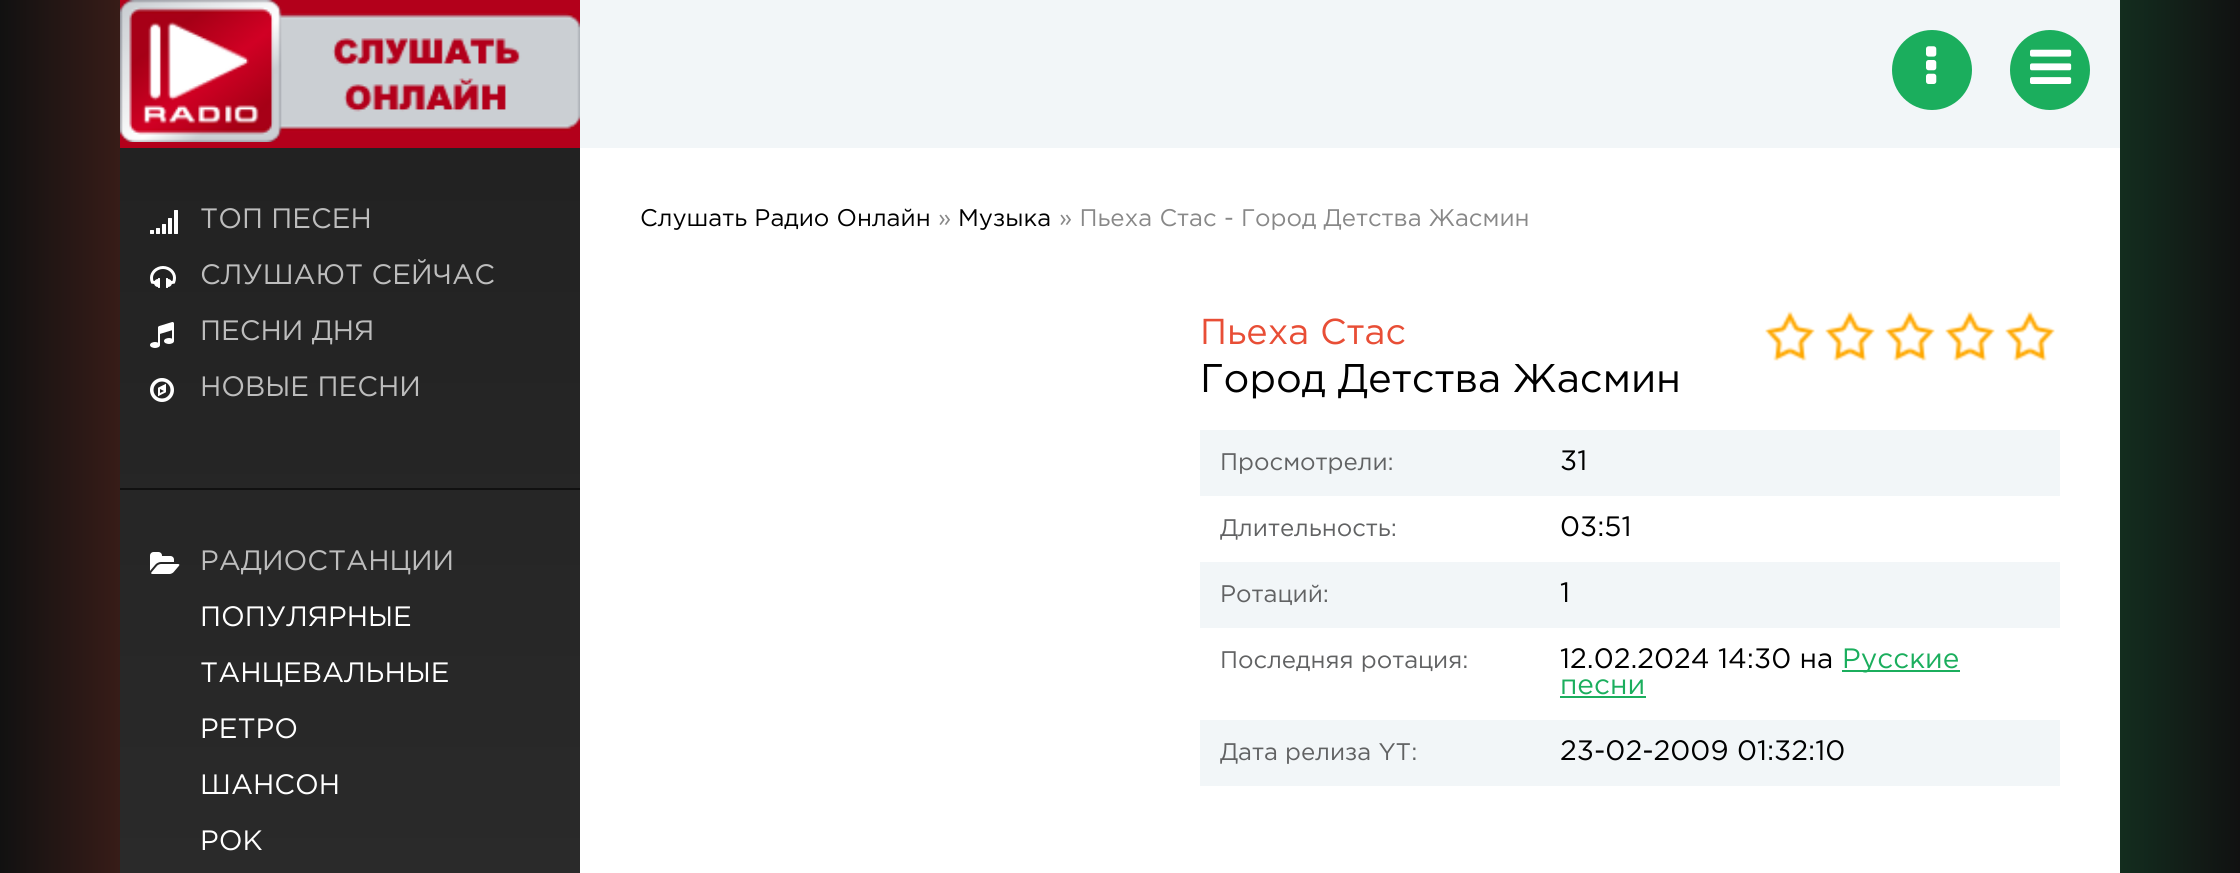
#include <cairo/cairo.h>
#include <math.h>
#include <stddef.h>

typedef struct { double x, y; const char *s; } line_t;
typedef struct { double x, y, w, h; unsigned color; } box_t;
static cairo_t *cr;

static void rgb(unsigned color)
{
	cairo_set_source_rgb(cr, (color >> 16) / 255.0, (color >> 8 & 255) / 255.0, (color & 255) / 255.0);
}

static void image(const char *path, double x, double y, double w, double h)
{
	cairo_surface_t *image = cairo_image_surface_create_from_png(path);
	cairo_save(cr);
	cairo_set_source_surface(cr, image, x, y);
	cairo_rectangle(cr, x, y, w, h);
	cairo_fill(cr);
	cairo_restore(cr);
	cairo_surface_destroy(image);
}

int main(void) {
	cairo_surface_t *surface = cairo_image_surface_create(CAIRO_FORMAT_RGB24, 2240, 873);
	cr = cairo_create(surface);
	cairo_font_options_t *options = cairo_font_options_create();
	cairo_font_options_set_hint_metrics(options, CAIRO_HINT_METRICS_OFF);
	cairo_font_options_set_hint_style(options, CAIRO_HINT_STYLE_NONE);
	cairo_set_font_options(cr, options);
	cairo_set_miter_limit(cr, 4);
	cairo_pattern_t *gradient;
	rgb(0xffffff);
	cairo_paint(cr);
	gradient = cairo_pattern_create_linear(0, 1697, 2240, 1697);
	cairo_pattern_add_color_stop_rgba(gradient, 0, 0.067, 0.067, 0.067, 1);
	cairo_pattern_add_color_stop_rgba(gradient, 0.3, 0.91, 0.306, 0.212, 1);
	cairo_pattern_add_color_stop_rgba(gradient, 0.7, 0.106, 0.682, 0.365, 1);
	cairo_pattern_add_color_stop_rgba(gradient, 1, 0.067, 0.067, 0.067, 1);
	cairo_set_source(cr, gradient);
	cairo_pattern_destroy(gradient);
	cairo_rectangle(cr, 0, 0, 2240, 873);
	cairo_fill(cr);
	{
		static const box_t items[] = {
			{580, 148, 1540, 725, 0xffffff},
			{580, 0, 1540, 148, 0xf2f6f8},
			{120, 0, 460, 148, 0xb3001b},
		};
		for (size_t i = 0; i < sizeof items / sizeof *items; i++) {
			rgb(items[i].color);
			cairo_rectangle(cr, items[i].x, items[i].y, items[i].w, items[i].h);
			cairo_fill(cr);
		}
	}
	image("img/1.png", 120, 0, 460, 142);
	rgb(0x1bae5d);
	cairo_arc(cr, 1932, 70, 40, 0, 2 * M_PI);
	cairo_fill(cr);
	image("img/2.png", 1926, 46, 11, 38);
	cairo_arc(cr, 2050, 70, 40, 0, 2 * M_PI);
	cairo_fill(cr);
	image("img/3.png", 2030, 49, 42, 35);
	gradient = cairo_pattern_create_linear(350, 148, 350, 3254);
	cairo_pattern_add_color_stop_rgba(gradient, 0, 0.133, 0.133, 0.133, 1);
	cairo_pattern_add_color_stop_rgba(gradient, 1, 0.267, 0.267, 0.267, 1);
	cairo_set_source(cr, gradient);
	cairo_pattern_destroy(gradient);
	cairo_rectangle(cr, 120, 148, 460, 725);
	cairo_fill(cr);
	image("img/4.png", 150, 210, 28, 24);
	image("img/5.png", 150, 266, 26, 22);
	image("img/6.png", 150, 322, 24, 26);
	image("img/7.png", 150, 378, 24, 24);
	rgb(0x111111);
	cairo_rectangle(cr, 120, 488, 460, 2);
	cairo_fill(cr);
	image("img/8.png", 150, 552, 30, 22);
	image("img/9.png", 1765, 311, 290, 50);
	{
		static const box_t items[] = {
			{1200, 430, 860, 66, 0xf2f6f8},
			{1200, 562, 860, 66, 0xf2f6f8},
			{1842, 670, 118, 2, 0x1bae5d},
			{1560, 696, 86, 2, 0x1bae5d},
			{1200, 720, 860, 66, 0xf2f6f8},
		};
		for (size_t i = 0; i < sizeof items / sizeof *items; i++) {
			rgb(items[i].color);
			cairo_rectangle(cr, items[i].x, items[i].y, items[i].w, items[i].h);
			cairo_fill(cr);
		}
	}
	cairo_select_font_face(cr, "Gotham", CAIRO_FONT_SLANT_NORMAL, CAIRO_FONT_WEIGHT_NORMAL);
	cairo_set_font_size(cr, 28);
	rgb(0xbdbdbd);
	{
		static const line_t items[] = {
			{200, 228, "ТОП ПЕСЕН"},
			{200, 284, "СЛУШАЮТ СЕЙЧАС"},
			{200, 340, "ПЕСНИ ДНЯ"},
			{200, 396, "НОВЫЕ ПЕСНИ"},
			{200, 570, "РАДИОСТАНЦИИ"},
		};
		for (size_t i = 0; i < sizeof items / sizeof *items; i++) {
			cairo_move_to(cr, items[i].x, items[i].y);
			cairo_show_text(cr, items[i].s);
		}
	}
	rgb(0xffffff);
	{
		static const line_t items[] = {
			{200, 626, "ПОПУЛЯРНЫЕ"},
			{200, 682, "ТАНЦЕВАЛЬНЫЕ"},
			{200, 738, "РЕТРО"},
			{200, 794, "ШАНСОН"},
			{200, 850, "РОК"},
		};
		for (size_t i = 0; i < sizeof items / sizeof *items; i++) {
			cairo_move_to(cr, items[i].x, items[i].y);
			cairo_show_text(cr, items[i].s);
		}
	}
	cairo_set_font_size(cr, 24);
	rgb(0x000000);
	cairo_move_to(cr, 640, 226);
	cairo_show_text(cr, "Слушать Радио Онлайн");
	rgb(0x888888);
	cairo_move_to(cr, 938, 226);
	cairo_show_text(cr, "»");
	rgb(0x000000);
	cairo_move_to(cr, 958, 226);
	cairo_show_text(cr, "Музыка");
	rgb(0x888888);
	cairo_move_to(cr, 1059, 226);
	cairo_show_text(cr, "» Пьеха Стас - Город Детства Жасмин");
	cairo_set_font_size(cr, 36);
	rgb(0xe84e36);
	cairo_move_to(cr, 1200, 344);
	cairo_show_text(cr, "Пьеха Стас");
	cairo_set_font_size(cr, 40);
	rgb(0x000000);
	cairo_move_to(cr, 1200, 392);
	cairo_show_text(cr, "Город Детства Жасмин");
	cairo_set_font_size(cr, 24);
	rgb(0x616263);
	cairo_move_to(cr, 1220, 470);
	cairo_show_text(cr, "Просмотрели:");
	cairo_set_font_size(cr, 28);
	rgb(0x000000);
	cairo_move_to(cr, 1560, 470);
	cairo_show_text(cr, "31");
	cairo_set_font_size(cr, 24);
	rgb(0x616263);
	cairo_move_to(cr, 1220, 536);
	cairo_show_text(cr, "Длительность:");
	cairo_set_font_size(cr, 28);
	rgb(0x000000);
	cairo_move_to(cr, 1560, 536);
	cairo_show_text(cr, "03:51");
	cairo_set_font_size(cr, 24);
	rgb(0x616263);
	cairo_move_to(cr, 1220, 602);
	cairo_show_text(cr, "Ротаций:");
	cairo_set_font_size(cr, 28);
	rgb(0x000000);
	cairo_move_to(cr, 1560, 602);
	cairo_show_text(cr, "1");
	cairo_set_font_size(cr, 24);
	rgb(0x616263);
	cairo_move_to(cr, 1220, 668);
	cairo_show_text(cr, "Последняя ротация:");
	cairo_set_font_size(cr, 28);
	rgb(0x000000);
	cairo_move_to(cr, 1560, 668);
	cairo_show_text(cr, "12.02.2024 14:30 на");
	rgb(0x1bae5d);
	cairo_move_to(cr, 1842, 668);
	cairo_show_text(cr, "Русские");
	cairo_move_to(cr, 1560, 694);
	cairo_show_text(cr, "песни");
	cairo_set_font_size(cr, 24);
	rgb(0x616263);
	cairo_move_to(cr, 1220, 760);
	cairo_show_text(cr, "Дата релиза YT:");
	cairo_set_font_size(cr, 28);
	rgb(0x000000);
	cairo_move_to(cr, 1560, 760);
	cairo_show_text(cr, "23-02-2009 01:32:10");
	cairo_surface_write_to_png(surface, "page.png");
	cairo_font_options_destroy(options);
	cairo_destroy(cr);
	cairo_surface_destroy(surface);
	return 0;
}
